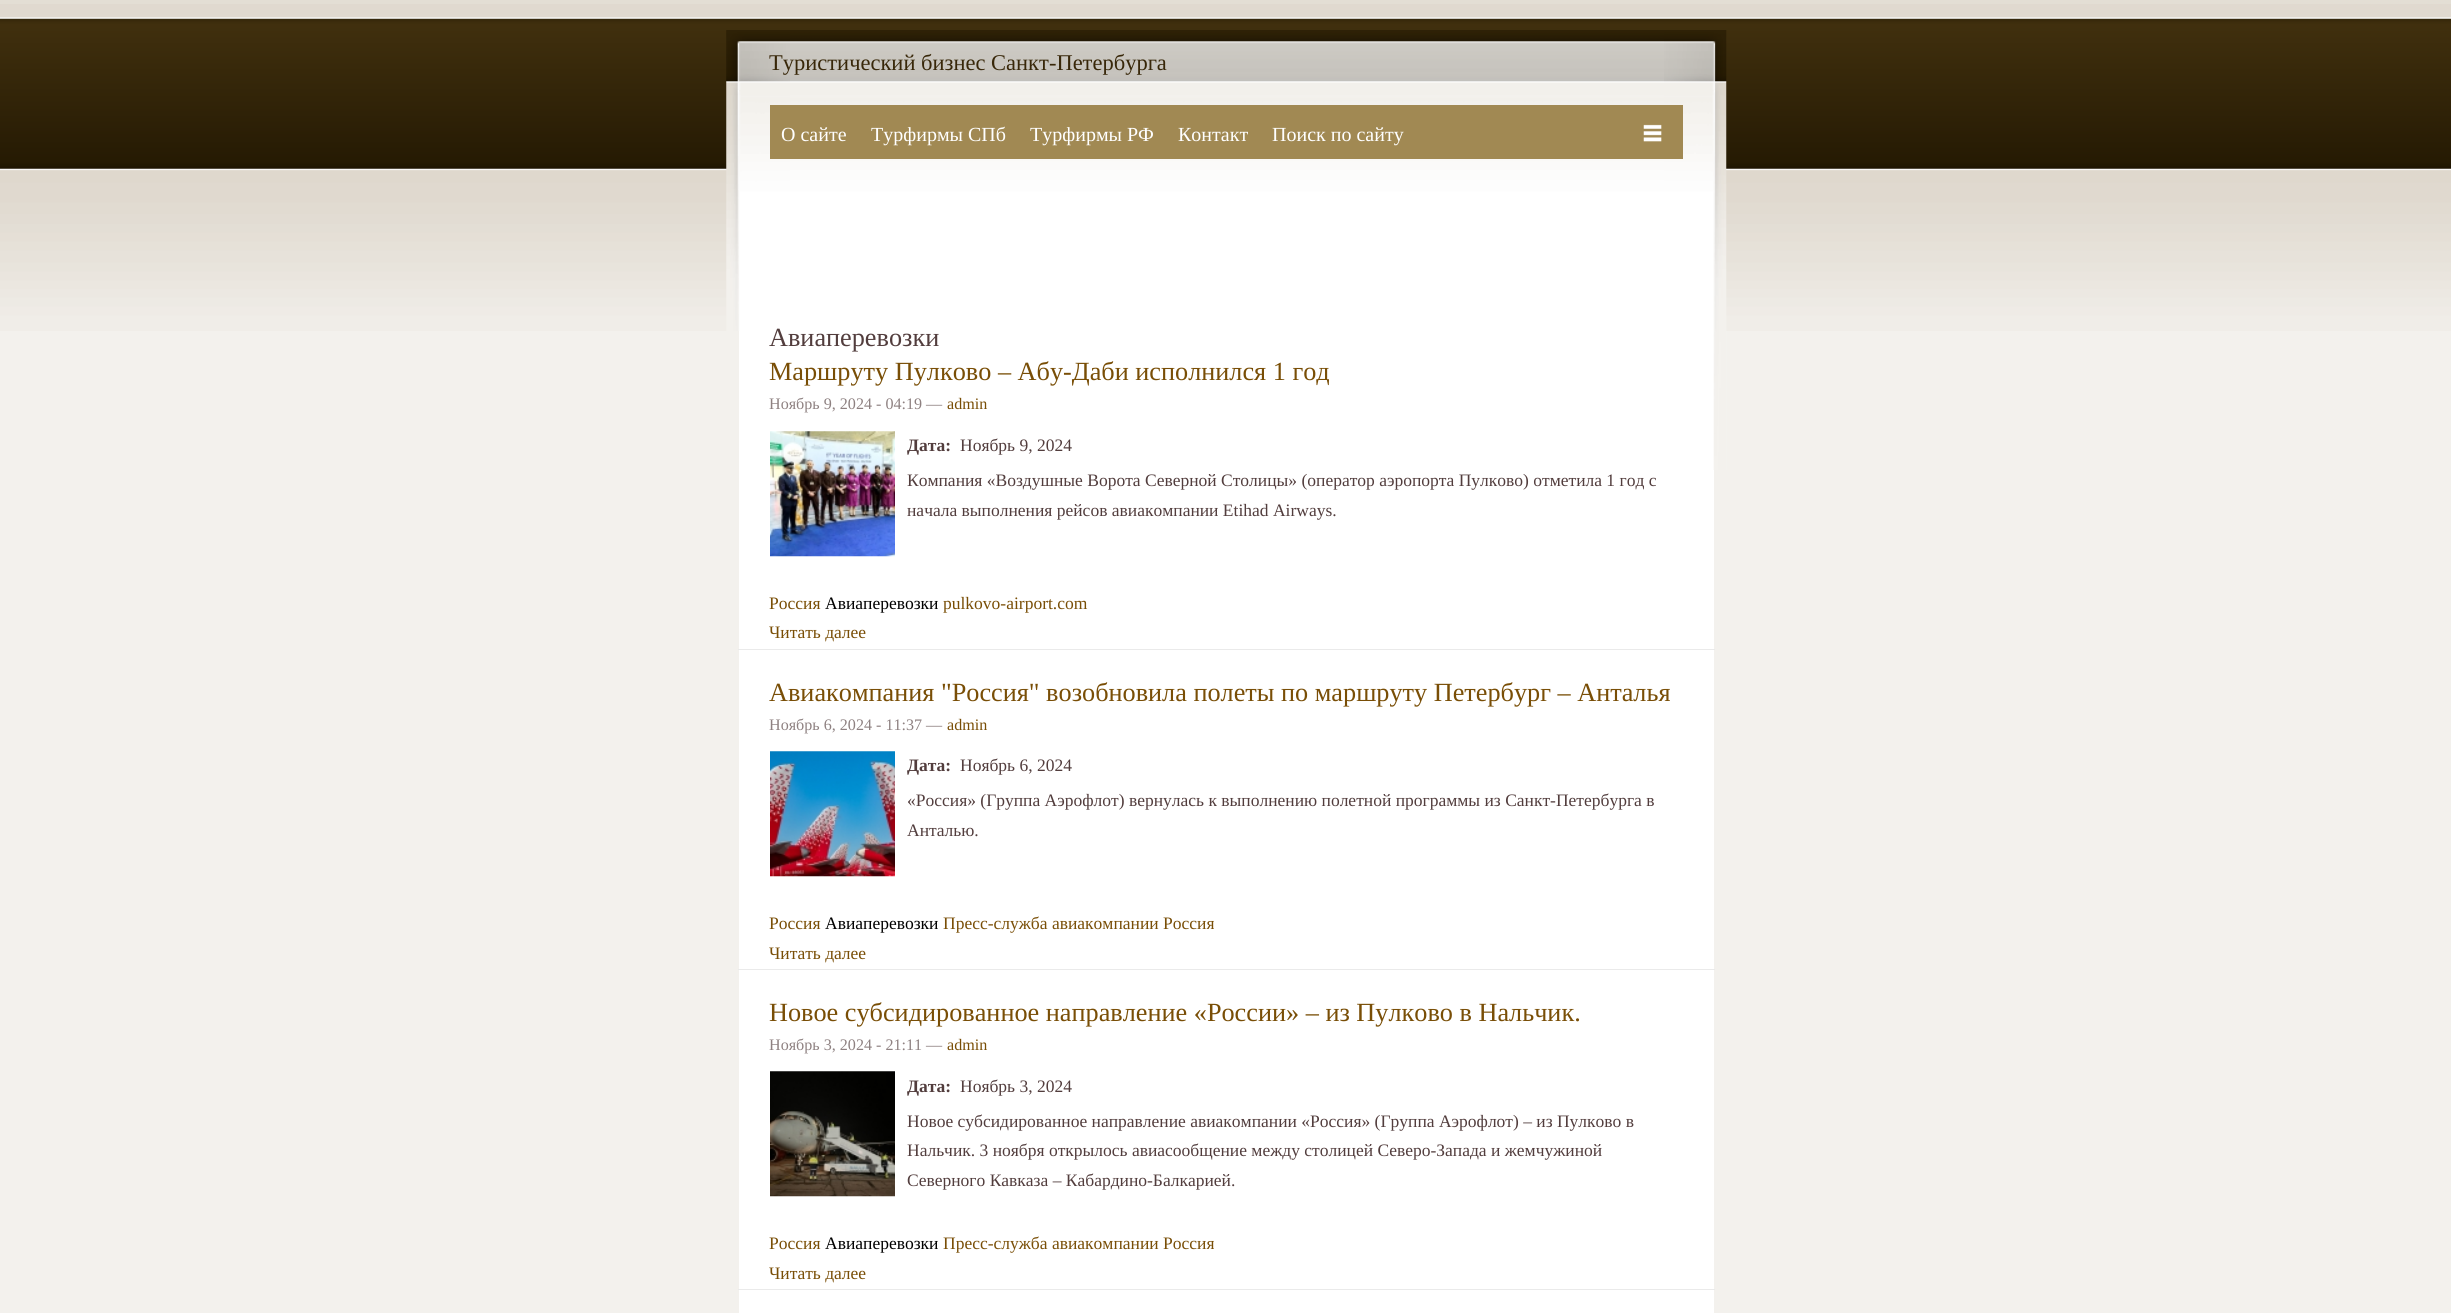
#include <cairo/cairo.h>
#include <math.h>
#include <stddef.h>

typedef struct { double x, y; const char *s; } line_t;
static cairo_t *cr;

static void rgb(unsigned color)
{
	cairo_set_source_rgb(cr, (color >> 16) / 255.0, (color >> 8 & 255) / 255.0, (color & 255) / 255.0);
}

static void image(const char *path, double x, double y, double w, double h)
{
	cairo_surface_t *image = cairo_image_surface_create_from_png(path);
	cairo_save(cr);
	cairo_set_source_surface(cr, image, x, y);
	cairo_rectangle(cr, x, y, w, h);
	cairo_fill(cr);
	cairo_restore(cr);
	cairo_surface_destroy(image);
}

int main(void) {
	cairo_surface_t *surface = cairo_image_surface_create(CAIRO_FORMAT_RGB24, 2451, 1313);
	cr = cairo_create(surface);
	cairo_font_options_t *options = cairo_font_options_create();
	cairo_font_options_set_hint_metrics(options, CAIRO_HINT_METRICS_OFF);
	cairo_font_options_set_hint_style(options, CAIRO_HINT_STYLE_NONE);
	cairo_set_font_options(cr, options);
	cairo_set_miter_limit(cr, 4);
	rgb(0xf3f1ed);
	cairo_paint(cr);
	rgb(0xe3ded4);
	cairo_rectangle(cr, 0, 0, 2451, 18);
	cairo_fill(cr);
	rgb(0xe0d9cf);
	cairo_rectangle(cr, 0, 4, 2451, 13);
	cairo_fill(cr);
	image("img/1.png", 0, 17, 2451, 314);
	rgb(0xffffff);
	cairo_rectangle(cr, 739, 280, 975, 1033);
	cairo_fill(cr);
	image("img/2.png", 790, 30, 874, 250);
	image("img/3.png", 1664, 30, 63, 440);
	image("img/4.png", 726, 30, 64, 301);
	rgb(0xa18953);
	cairo_rectangle(cr, 770, 105, 913, 54);
	cairo_fill(cr);
	image("img/5.png", 1643, 124, 19, 18);
	rgb(0xeaeaea);
	cairo_rectangle(cr, 738, 649, 977, 1);
	cairo_fill(cr);
	image("img/6.png", 770, 431, 125, 126);
	cairo_rectangle(cr, 738, 969, 977, 1);
	cairo_fill(cr);
	image("img/7.png", 770, 751, 125, 126);
	cairo_rectangle(cr, 738, 1289, 977, 1);
	cairo_fill(cr);
	image("img/8.png", 770, 1071, 125, 126);
	cairo_select_font_face(cr, "Liberation Serif", CAIRO_FONT_SLANT_NORMAL, CAIRO_FONT_WEIGHT_NORMAL);
	cairo_set_font_size(cr, 22.5);
	rgb(0x382709);
	cairo_move_to(cr, 769, 70);
	cairo_show_text(cr, "Туристический бизнес Санкт-Петербурга");
	cairo_set_font_size(cr, 20);
	rgb(0xffffff);
	{
		static const line_t items[] = {
			{781, 141, "О сайте"},
			{871, 141, "Турфирмы СПб"},
			{1030, 141, "Турфирмы РФ"},
			{1178, 141, "Контакт"},
			{1272, 141, "Поиск по сайту"},
		};
		for (size_t i = 0; i < sizeof items / sizeof *items; i++) {
			cairo_move_to(cr, items[i].x, items[i].y);
			cairo_show_text(cr, items[i].s);
		}
	}
	cairo_set_font_size(cr, 26.25);
	rgb(0x523d3d);
	cairo_move_to(cr, 769, 346);
	cairo_show_text(cr, "Авиаперевозки");
	rgb(0x794e06);
	cairo_move_to(cr, 769, 380);
	cairo_show_text(cr, "Маршруту Пулково – Абу-Даби исполнился 1 год");
	cairo_set_font_size(cr, 16.1);
	rgb(0x8e8181);
	cairo_move_to(cr, 769, 409);
	cairo_show_text(cr, "Ноябрь 9, 2024 - 04:19 —");
	rgb(0x794e06);
	cairo_move_to(cr, 947, 409);
	cairo_show_text(cr, "admin");
	cairo_select_font_face(cr, "Liberation Serif", CAIRO_FONT_SLANT_NORMAL, CAIRO_FONT_WEIGHT_BOLD);
	cairo_set_font_size(cr, 17.5);
	rgb(0x523d3d);
	cairo_move_to(cr, 907, 451);
	cairo_show_text(cr, "Дата:");
	cairo_select_font_face(cr, "Liberation Serif", CAIRO_FONT_SLANT_NORMAL, CAIRO_FONT_WEIGHT_NORMAL);
	{
		static const line_t items[] = {
			{960, 451, "Ноябрь 9, 2024"},
			{907, 486, "Компания «Воздушные Ворота Северной Столицы» (оператор аэропорта Пулково) отметила 1 год с"},
			{907, 516, "начала выполнения рейсов авиакомпании Etihad Airways."},
		};
		for (size_t i = 0; i < sizeof items / sizeof *items; i++) {
			cairo_move_to(cr, items[i].x, items[i].y);
			cairo_show_text(cr, items[i].s);
		}
	}
	rgb(0x794e06);
	cairo_move_to(cr, 769, 609);
	cairo_show_text(cr, "Россия");
	rgb(0x000000);
	cairo_move_to(cr, 825, 609);
	cairo_show_text(cr, "Авиаперевозки");
	rgb(0x794e06);
	cairo_move_to(cr, 943, 609);
	cairo_show_text(cr, "pulkovo-airport.com");
	cairo_move_to(cr, 769, 638);
	cairo_show_text(cr, "Читать далее");
	cairo_set_font_size(cr, 26.25);
	cairo_move_to(cr, 769, 701);
	cairo_show_text(cr, "Авиакомпания \"Россия\" возобновила полеты по маршруту Петербург – Анталья");
	cairo_set_font_size(cr, 16.1);
	rgb(0x8e8181);
	cairo_move_to(cr, 769, 730);
	cairo_show_text(cr, "Ноябрь 6, 2024 - 11:37 —");
	rgb(0x794e06);
	cairo_move_to(cr, 947, 730);
	cairo_show_text(cr, "admin");
	cairo_select_font_face(cr, "Liberation Serif", CAIRO_FONT_SLANT_NORMAL, CAIRO_FONT_WEIGHT_BOLD);
	cairo_set_font_size(cr, 17.5);
	rgb(0x523d3d);
	cairo_move_to(cr, 907, 771);
	cairo_show_text(cr, "Дата:");
	cairo_select_font_face(cr, "Liberation Serif", CAIRO_FONT_SLANT_NORMAL, CAIRO_FONT_WEIGHT_NORMAL);
	{
		static const line_t items[] = {
			{960, 771, "Ноябрь 6, 2024"},
			{907, 806, "«Россия» (Группа Аэрофлот) вернулась к выполнению полетной программы из Санкт-Петербурга в"},
			{907, 836, "Анталью."},
		};
		for (size_t i = 0; i < sizeof items / sizeof *items; i++) {
			cairo_move_to(cr, items[i].x, items[i].y);
			cairo_show_text(cr, items[i].s);
		}
	}
	rgb(0x794e06);
	cairo_move_to(cr, 769, 929);
	cairo_show_text(cr, "Россия");
	rgb(0x000000);
	cairo_move_to(cr, 825, 929);
	cairo_show_text(cr, "Авиаперевозки");
	rgb(0x794e06);
	cairo_move_to(cr, 943, 929);
	cairo_show_text(cr, "Пресс-служба авиакомпании Россия");
	cairo_move_to(cr, 769, 959);
	cairo_show_text(cr, "Читать далее");
	cairo_set_font_size(cr, 26.25);
	cairo_move_to(cr, 769, 1021);
	cairo_show_text(cr, "Новое субсидированное направление «России» – из Пулково в Нальчик.");
	cairo_set_font_size(cr, 16.1);
	rgb(0x8e8181);
	cairo_move_to(cr, 769, 1050);
	cairo_show_text(cr, "Ноябрь 3, 2024 - 21:11 —");
	rgb(0x794e06);
	cairo_move_to(cr, 947, 1050);
	cairo_show_text(cr, "admin");
	cairo_select_font_face(cr, "Liberation Serif", CAIRO_FONT_SLANT_NORMAL, CAIRO_FONT_WEIGHT_BOLD);
	cairo_set_font_size(cr, 17.5);
	rgb(0x523d3d);
	cairo_move_to(cr, 907, 1092);
	cairo_show_text(cr, "Дата:");
	cairo_select_font_face(cr, "Liberation Serif", CAIRO_FONT_SLANT_NORMAL, CAIRO_FONT_WEIGHT_NORMAL);
	{
		static const line_t items[] = {
			{960, 1092, "Ноябрь 3, 2024"},
			{907, 1127, "Новое субсидированное направление авиакомпании «Россия» (Группа Аэрофлот) – из Пулково в"},
			{907, 1156, "Нальчик. 3 ноября открылось авиасообщение между столицей Северо-Запада и жемчужиной"},
			{907, 1186, "Северного Кавказа – Кабардино-Балкарией."},
		};
		for (size_t i = 0; i < sizeof items / sizeof *items; i++) {
			cairo_move_to(cr, items[i].x, items[i].y);
			cairo_show_text(cr, items[i].s);
		}
	}
	rgb(0x794e06);
	cairo_move_to(cr, 769, 1249);
	cairo_show_text(cr, "Россия");
	rgb(0x000000);
	cairo_move_to(cr, 825, 1249);
	cairo_show_text(cr, "Авиаперевозки");
	rgb(0x794e06);
	cairo_move_to(cr, 943, 1249);
	cairo_show_text(cr, "Пресс-служба авиакомпании Россия");
	cairo_move_to(cr, 769, 1279);
	cairo_show_text(cr, "Читать далее");
	cairo_surface_write_to_png(surface, "page.png");
	cairo_font_options_destroy(options);
	cairo_destroy(cr);
	cairo_surface_destroy(surface);
	return 0;
}
